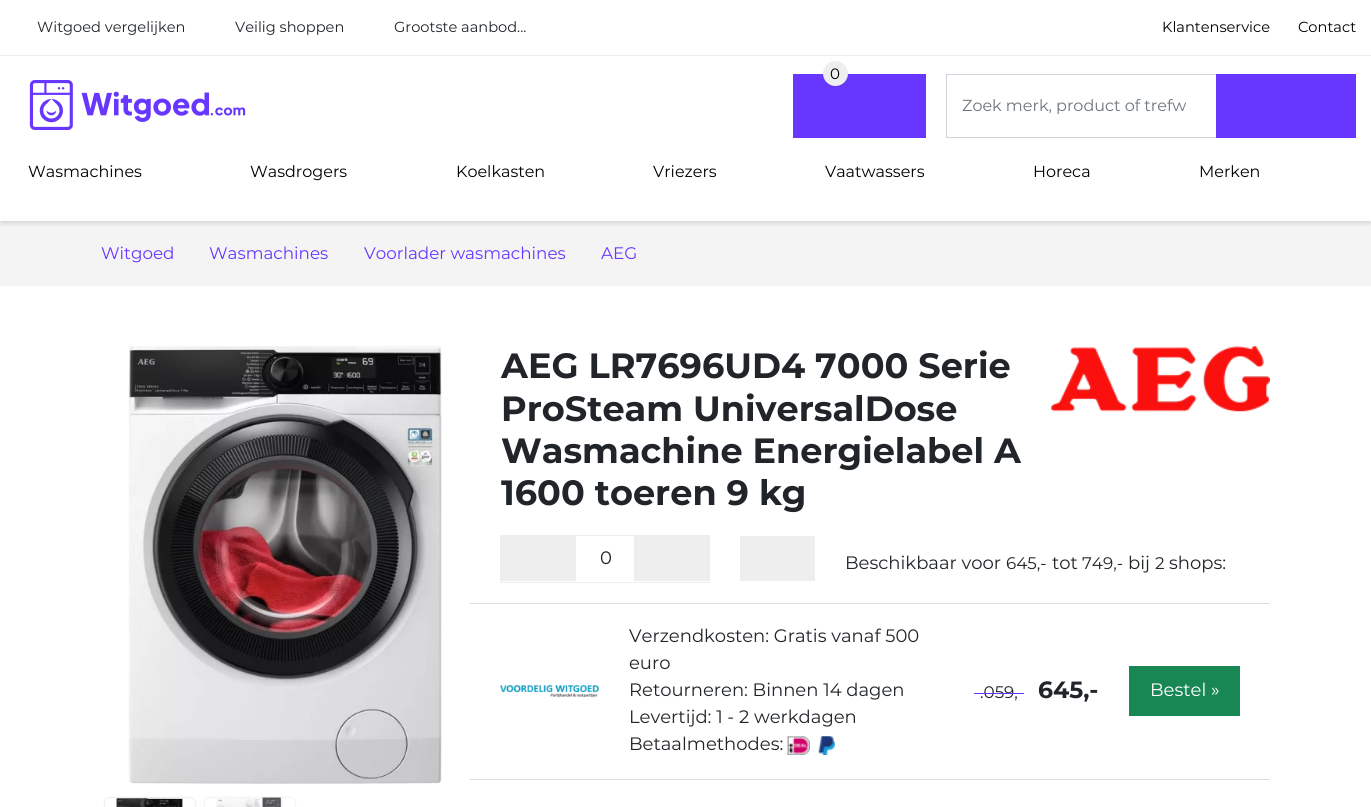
#include <cairo/cairo.h>
#include <math.h>
#include <stddef.h>

typedef struct { double x, y; const char *s; } line_t;
typedef struct { double x, y, w, h; unsigned color; } box_t;
static cairo_t *cr;

static void rgb(unsigned color)
{
	cairo_set_source_rgb(cr, (color >> 16) / 255.0, (color >> 8 & 255) / 255.0, (color & 255) / 255.0);
}

static void rrect(double x, double y, double w, double h, double r)
{
	cairo_new_sub_path(cr);
	cairo_arc(cr, x + w - r, y + h - r, r, 0, M_PI / 2);
	cairo_arc(cr, x + r, y + h - r, r, M_PI / 2, M_PI);
	cairo_arc(cr, x + r, y + r, r, M_PI, 1.5 * M_PI);
	cairo_arc(cr, x + w - r, y + r, r, 1.5 * M_PI, 2 * M_PI);
	cairo_close_path(cr);
}

static void soft_shadow(double x, double y, double w, double h, double r, double blur, double alpha)
{
	cairo_push_group_with_content(cr, CAIRO_CONTENT_ALPHA);
	cairo_set_operator(cr, CAIRO_OPERATOR_SOURCE);
	for (int i = 15; i >= -15 && fmin(w, h) + blur * i / 3 > 0; i -= 2) {
		double e = blur * i / 6;
		cairo_set_source_rgba(cr, 0, 0, 0, alpha * erfc((i - 1) / 8.5) / 2);
		rrect(x - e, y - e, w + 2 * e, h + 2 * e, fmax(0, fmin(r + e + blur * .6, fmin(w, h) / 2 + e)));
		cairo_fill(cr);
	}
	cairo_pattern_t *soft = cairo_pop_group(cr);
	cairo_mask(cr, soft);
	cairo_pattern_destroy(soft);
}

static void image(const char *path, double x, double y, double w, double h)
{
	cairo_surface_t *image = cairo_image_surface_create_from_png(path);
	cairo_save(cr);
	cairo_set_source_surface(cr, image, x, y);
	cairo_rectangle(cr, x, y, w, h);
	cairo_fill(cr);
	cairo_restore(cr);
	cairo_surface_destroy(image);
}

int main(void) {
	cairo_surface_t *surface = cairo_image_surface_create(CAIRO_FORMAT_RGB24, 1371, 807);
	cr = cairo_create(surface);
	cairo_font_options_t *options = cairo_font_options_create();
	cairo_font_options_set_hint_metrics(options, CAIRO_HINT_METRICS_OFF);
	cairo_font_options_set_hint_style(options, CAIRO_HINT_STYLE_NONE);
	cairo_set_font_options(cr, options);
	cairo_set_miter_limit(cr, 4);
	rgb(0xffffff);
	cairo_paint(cr);
	rgb(0xf4f4f4);
	cairo_rectangle(cr, 0, 221, 1371, 65);
	cairo_fill(cr);
	cairo_save(cr);
	cairo_rectangle(cr, 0, 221, 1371, 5);
	cairo_clip(cr);
	rgb(0x000000);
	soft_shadow(1, 59, 1369, 164, 0, 3, 0.15);
	cairo_restore(cr);
	rgb(0xeeeeee);
	cairo_rectangle(cr, 0, 55, 1371, 1);
	cairo_fill(cr);
	image("img/1.png", 29, 80, 217, 50);
	rgb(0x6737ff);
	cairo_rectangle(cr, 793, 74, 133, 64);
	cairo_fill(cr);
	rgb(0xeeeeee);
	cairo_arc(cr, 835.5, 73.5, 12.5, 0, 2 * M_PI);
	cairo_fill(cr);
	cairo_rectangle(cr, 946.5, 74.5, 409, 63);
	rgb(0xced4da);
	cairo_set_line_width(cr, 1);
	cairo_stroke(cr);
	rgb(0x6737ff);
	cairo_rectangle(cr, 1216, 74, 140, 64);
	cairo_fill(cr);
	image("img/2.png", 128, 346, 314, 438);
	rgb(0x000000);
	soft_shadow(105, 798, 90, 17, 5, 1, 0.2);
	rgb(0xffffff);
	rrect(105, 798, 90, 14, 5);
	cairo_fill(cr);
	image("img/3.png", 116, 797, 67, 10);
	rgb(0x4d4d4d);
	soft_shadow(205, 798, 90, 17, 5, 1, 0.2);
	rgb(0xffffff);
	rrect(205, 798, 90, 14, 5);
	cairo_fill(cr);
	image("img/4.png", 216, 797, 67, 10);
	image("img/5.png", 1051, 346, 219, 66);
	cairo_rectangle(cr, 500.5, 535.5, 209, 47);
	rgb(0xeeeeee);
	cairo_stroke(cr);
	{
		static const box_t items[] = {
			{501, 536, 75, 45, 0xeeeeee},
			{634, 536, 75, 45, 0xeeeeee},
			{740, 536, 75, 45, 0xeeeeee},
			{470, 603, 800, 1, 0xdddddd},
		};
		for (size_t i = 0; i < sizeof items / sizeof *items; i++) {
			rgb(items[i].color);
			cairo_rectangle(cr, items[i].x, items[i].y, items[i].w, items[i].h);
			cairo_fill(cr);
		}
	}
	image("img/6.png", 500, 685, 99, 13);
	image("img/7.png", 787, 736, 23, 19);
	image("img/8.png", 818, 736, 17, 19);
	rgb(0x198754);
	cairo_rectangle(cr, 1129, 666, 111, 50);
	cairo_fill(cr);
	rgb(0xdddddd);
	cairo_rectangle(cr, 470, 779, 800, 1);
	cairo_fill(cr);
	cairo_select_font_face(cr, "Montserrat", CAIRO_FONT_SLANT_NORMAL, CAIRO_FONT_WEIGHT_NORMAL);
	cairo_set_font_size(cr, 14.6);
	rgb(0x212529);
	{
		static const line_t items[] = {
			{37, 32, "Witgoed vergelijken"},
			{235, 32, "Veilig shoppen"},
			{394, 32, "Grootste aanbod..."},
		};
		for (size_t i = 0; i < sizeof items / sizeof *items; i++) {
			cairo_move_to(cr, items[i].x, items[i].y);
			cairo_show_text(cr, items[i].s);
		}
	}
	rgb(0x000000);
	cairo_move_to(cr, 1162, 32);
	cairo_show_text(cr, "Klantenservice");
	cairo_move_to(cr, 1298, 32);
	cairo_show_text(cr, "Contact");
	cairo_set_font_size(cr, 15);
	cairo_move_to(cr, 830, 79);
	cairo_show_text(cr, "0");
	cairo_set_font_size(cr, 16);
	rgb(0x6c757d);
	cairo_move_to(cr, 962, 111);
	cairo_show_text(cr, "Zoek merk, product of trefw");
	rgb(0x000000);
	{
		static const line_t items[] = {
			{28, 177, "Wasmachines"},
			{250, 177, "Wasdrogers"},
			{456, 177, "Koelkasten"},
			{653, 177, "Vriezers"},
			{825, 177, "Vaatwassers"},
			{1033, 177, "Horeca"},
			{1199, 177, "Merken"},
		};
		for (size_t i = 0; i < sizeof items / sizeof *items; i++) {
			cairo_move_to(cr, items[i].x, items[i].y);
			cairo_show_text(cr, items[i].s);
		}
	}
	cairo_set_font_size(cr, 16.75);
	rgb(0x6737ff);
	{
		static const line_t items[] = {
			{101, 259, "Witgoed"},
			{209, 259, "Wasmachines"},
			{364, 259, "Voorlader wasmachines"},
			{601, 259, "AEG"},
		};
		for (size_t i = 0; i < sizeof items / sizeof *items; i++) {
			cairo_move_to(cr, items[i].x, items[i].y);
			cairo_show_text(cr, items[i].s);
		}
	}
	cairo_select_font_face(cr, "Montserrat", CAIRO_FONT_SLANT_NORMAL, CAIRO_FONT_WEIGHT_BOLD);
	cairo_set_font_size(cr, 35.1);
	rgb(0x212529);
	{
		static const line_t items[] = {
			{501, 378, "AEG LR7696UD4 7000 Serie"},
			{501, 421, "ProSteam UniversalDose"},
			{501, 463, "Wasmachine Energielabel A"},
			{501, 505, "1600 toeren 9 kg"},
		};
		for (size_t i = 0; i < sizeof items / sizeof *items; i++) {
			cairo_move_to(cr, items[i].x, items[i].y);
			cairo_show_text(cr, items[i].s);
		}
	}
	cairo_select_font_face(cr, "Montserrat", CAIRO_FONT_SLANT_NORMAL, CAIRO_FONT_WEIGHT_NORMAL);
	cairo_set_font_size(cr, 18);
	rgb(0x1d1d1d);
	cairo_move_to(cr, 600, 564);
	cairo_show_text(cr, "0");
	rgb(0x212529);
	cairo_move_to(cr, 845, 569);
	cairo_show_text(cr, "Beschikbaar voor");
	cairo_set_font_size(cr, 16.75);
	cairo_move_to(cr, 1006, 569);
	cairo_show_text(cr, "645,-");
	cairo_set_font_size(cr, 18);
	cairo_move_to(cr, 1052, 569);
	cairo_show_text(cr, "tot");
	cairo_set_font_size(cr, 16.75);
	cairo_move_to(cr, 1082, 569);
	cairo_show_text(cr, "749,-");
	cairo_set_font_size(cr, 18);
	cairo_move_to(cr, 1128, 569);
	cairo_show_text(cr, "bij");
	cairo_set_font_size(cr, 16.75);
	cairo_move_to(cr, 1155, 569);
	cairo_show_text(cr, "2");
	cairo_set_font_size(cr, 18);
	{
		static const line_t items[] = {
			{1169, 569, "shops:"},
			{629, 642, "Verzendkosten: Gratis vanaf 500"},
			{629, 669, "euro"},
			{629, 696, "Retourneren: Binnen 14 dagen"},
			{629, 723, "Levertijd: 1 - 2 werkdagen"},
			{629, 750, "Betaalmethodes:"},
		};
		for (size_t i = 0; i < sizeof items / sizeof *items; i++) {
			cairo_move_to(cr, items[i].x, items[i].y);
			cairo_show_text(cr, items[i].s);
		}
	}
	cairo_set_font_size(cr, 16.75);
	cairo_move_to(cr, 980, 698);
	cairo_show_text(cr, ".059,");
	rgb(0x6737ff);
	cairo_rectangle(cr, 974, 693, 50, 1);
	cairo_fill(cr);
	cairo_select_font_face(cr, "Montserrat", CAIRO_FONT_SLANT_NORMAL, CAIRO_FONT_WEIGHT_BOLD);
	cairo_set_font_size(cr, 23.5);
	rgb(0x212529);
	cairo_move_to(cr, 1038, 698);
	cairo_show_text(cr, "645,-");
	cairo_select_font_face(cr, "Montserrat", CAIRO_FONT_SLANT_NORMAL, CAIRO_FONT_WEIGHT_NORMAL);
	cairo_set_font_size(cr, 18);
	rgb(0xffffff);
	cairo_move_to(cr, 1150, 696);
	cairo_show_text(cr, "Bestel »");
	cairo_surface_write_to_png(surface, "page.png");
	cairo_font_options_destroy(options);
	cairo_destroy(cr);
	cairo_surface_destroy(surface);
	return 0;
}
